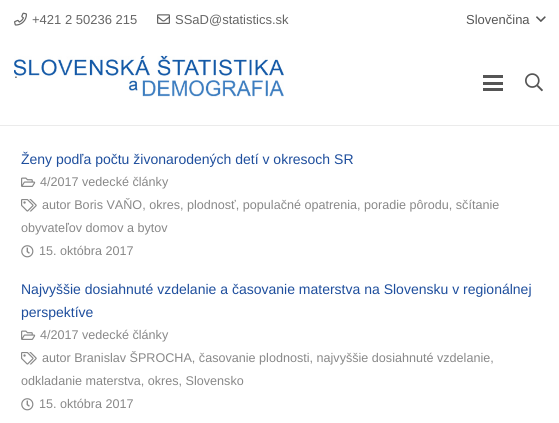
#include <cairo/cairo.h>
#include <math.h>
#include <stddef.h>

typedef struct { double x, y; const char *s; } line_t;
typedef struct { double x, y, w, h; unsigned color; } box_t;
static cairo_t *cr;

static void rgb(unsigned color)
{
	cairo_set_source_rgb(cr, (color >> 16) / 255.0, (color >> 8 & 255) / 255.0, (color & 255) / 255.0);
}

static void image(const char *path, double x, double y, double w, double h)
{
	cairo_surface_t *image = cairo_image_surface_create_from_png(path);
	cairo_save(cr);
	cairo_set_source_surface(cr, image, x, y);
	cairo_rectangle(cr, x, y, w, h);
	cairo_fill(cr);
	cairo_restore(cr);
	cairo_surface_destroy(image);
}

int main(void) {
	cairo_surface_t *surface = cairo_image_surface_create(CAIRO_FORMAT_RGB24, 559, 423);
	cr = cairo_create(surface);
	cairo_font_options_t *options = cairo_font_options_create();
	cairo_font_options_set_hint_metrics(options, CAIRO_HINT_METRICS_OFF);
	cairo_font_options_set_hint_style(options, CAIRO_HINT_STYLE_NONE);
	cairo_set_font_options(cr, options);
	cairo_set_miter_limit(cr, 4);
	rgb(0xffffff);
	cairo_paint(cr);
	image("img/1.png", 14, 12, 13, 14);
	image("img/2.png", 157, 14, 13, 10);
	image("img/3.png", 536, 16, 10, 6);
	rgb(0xebebeb);
	cairo_rectangle(cr, 0, 125, 559, 1);
	cairo_fill(cr);
	image("img/4.png", 14, 55, 270, 42);
	{
		static const box_t items[] = {
			{483, 82, 20, 3, 0x555555},
			{483, 75, 20, 3, 0x555555},
			{483, 88, 20, 3, 0x555555},
		};
		for (size_t i = 0; i < sizeof items / sizeof *items; i++) {
			rgb(items[i].color);
			cairo_rectangle(cr, items[i].x, items[i].y, items[i].w, items[i].h);
			cairo_fill(cr);
		}
	}
	image("img/5.png", 525, 73, 18, 19);
	image("img/6.png", 21, 177, 15, 10);
	image("img/7.png", 21, 199, 16, 13);
	image("img/8.png", 21, 245, 13, 13);
	image("img/6.png", 21, 330, 15, 10);
	image("img/7.png", 21, 352, 16, 13);
	image("img/8.png", 21, 398, 13, 13);
	cairo_select_font_face(cr, "Liberation Sans", CAIRO_FONT_SLANT_NORMAL, CAIRO_FONT_WEIGHT_NORMAL);
	cairo_set_font_size(cr, 13);
	rgb(0x666666);
	cairo_move_to(cr, 32, 24);
	cairo_show_text(cr, "+421 2 50236 215");
	cairo_move_to(cr, 175, 24);
	cairo_show_text(cr, "SSaD@statistics.sk");
	rgb(0x555555);
	cairo_move_to(cr, 466, 24);
	cairo_show_text(cr, "Slovenčina");
	cairo_set_font_size(cr, 14);
	cairo_move_to(cr, 14, 78);
	cairo_show_text(cr, ".");
	rgb(0x1e4e9d);
	cairo_move_to(cr, 21, 164);
	cairo_show_text(cr, "Ženy podľa počtu živonarodených detí v okresoch SR");
	cairo_set_font_size(cr, 12.6);
	rgb(0x888888);
	{
		static const line_t items[] = {
			{40, 186, "4/2017 vedecké články"},
			{42, 209, "autor Boris VAŇO, okres, plodnosť, populačné opatrenia, poradie pôrodu, sčítanie"},
			{21, 232, "obyvateľov domov a bytov"},
			{39, 255, "15. októbra 2017"},
		};
		for (size_t i = 0; i < sizeof items / sizeof *items; i++) {
			cairo_move_to(cr, items[i].x, items[i].y);
			cairo_show_text(cr, items[i].s);
		}
	}
	cairo_set_font_size(cr, 14);
	rgb(0x1e4e9d);
	cairo_move_to(cr, 21, 294);
	cairo_show_text(cr, "Najvyššie dosiahnuté vzdelanie a časovanie materstva na Slovensku v regionálnej");
	cairo_move_to(cr, 21, 317);
	cairo_show_text(cr, "perspektíve");
	cairo_set_font_size(cr, 12.6);
	rgb(0x888888);
	{
		static const line_t items[] = {
			{40, 339, "4/2017 vedecké články"},
			{42, 362, "autor Branislav ŠPROCHA, časovanie plodnosti, najvyššie dosiahnuté vzdelanie,"},
			{21, 385, "odkladanie materstva, okres, Slovensko"},
			{39, 408, "15. októbra 2017"},
		};
		for (size_t i = 0; i < sizeof items / sizeof *items; i++) {
			cairo_move_to(cr, items[i].x, items[i].y);
			cairo_show_text(cr, items[i].s);
		}
	}
	cairo_surface_write_to_png(surface, "page.png");
	cairo_font_options_destroy(options);
	cairo_destroy(cr);
	cairo_surface_destroy(surface);
	return 0;
}
